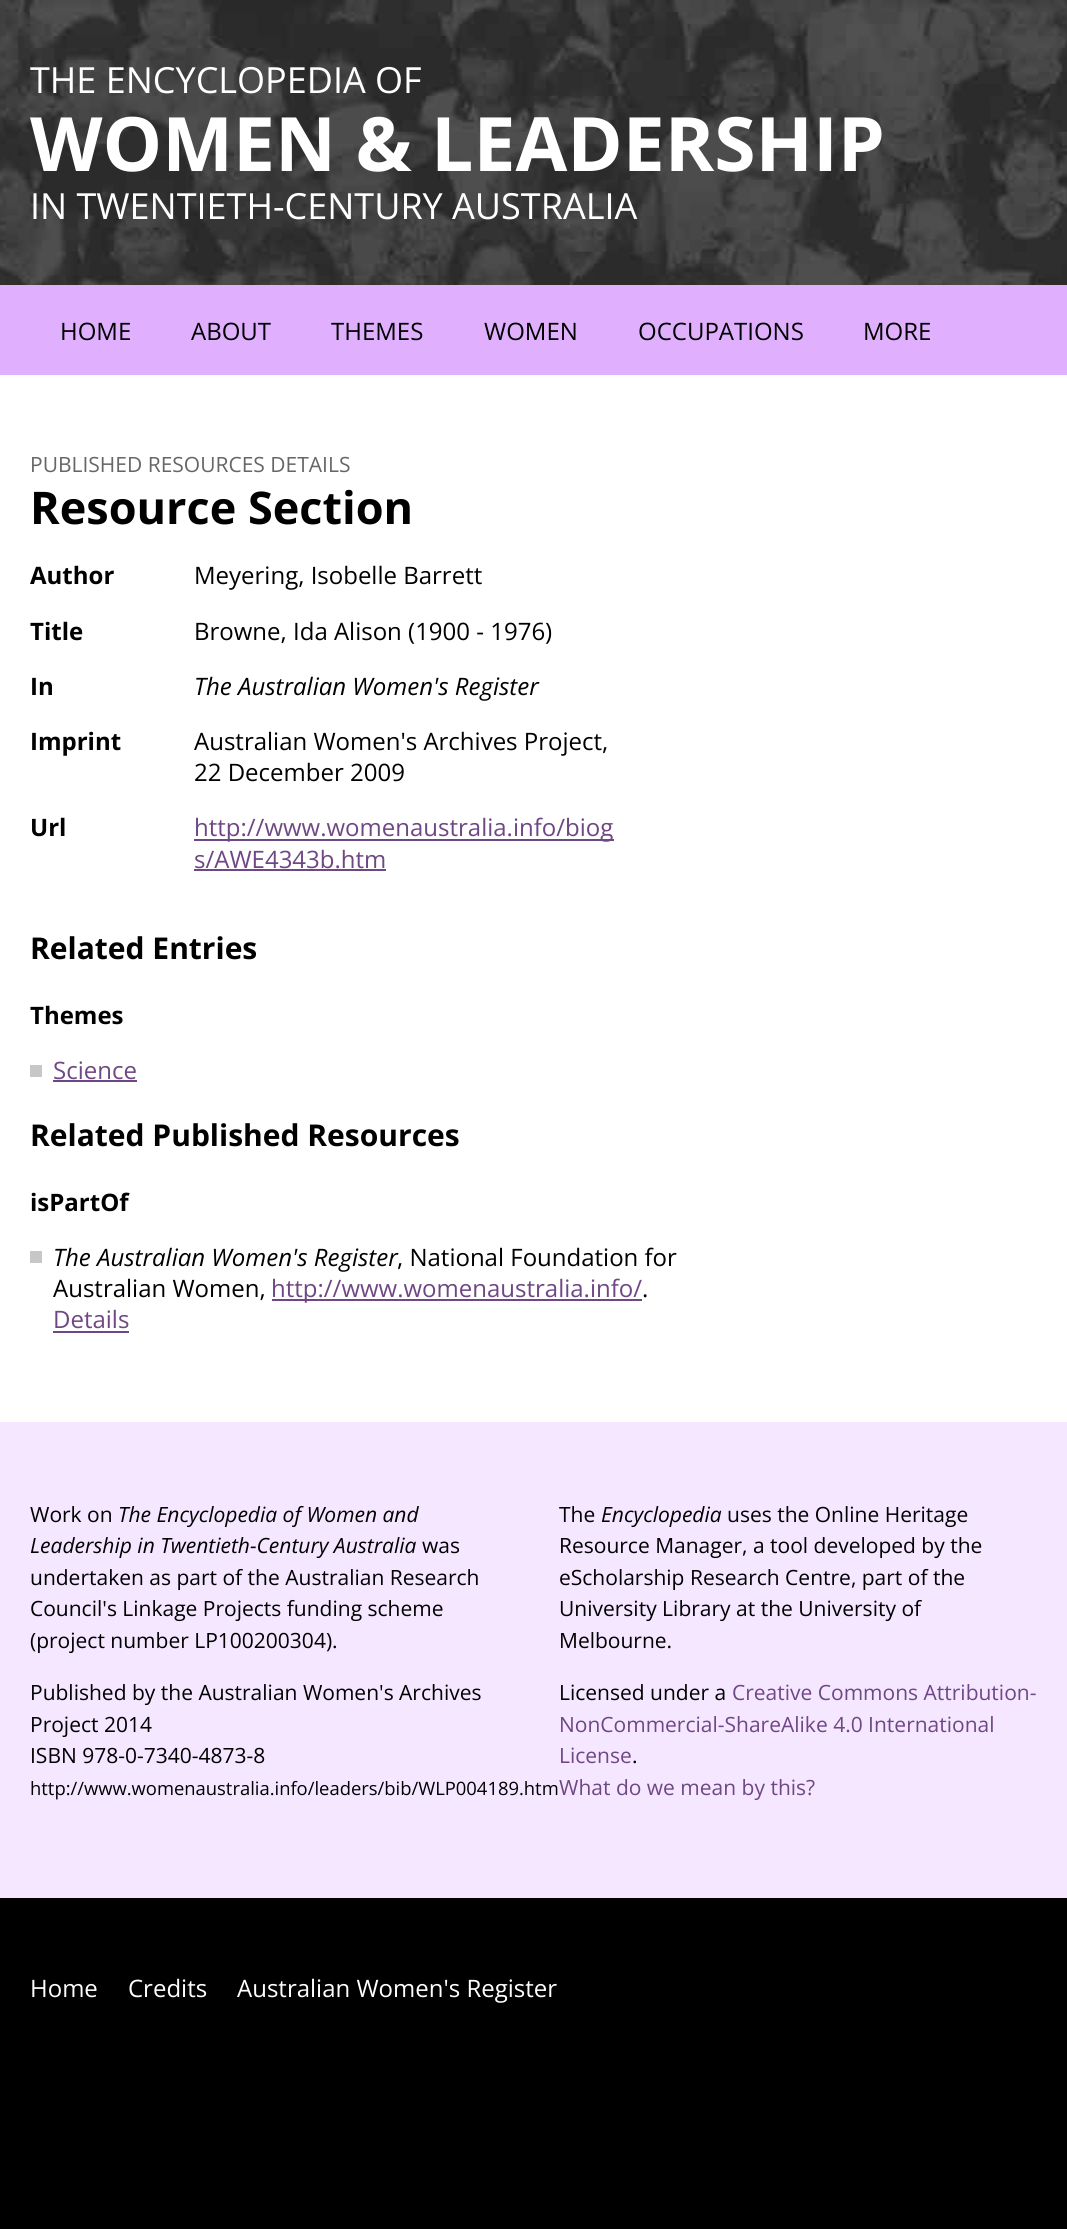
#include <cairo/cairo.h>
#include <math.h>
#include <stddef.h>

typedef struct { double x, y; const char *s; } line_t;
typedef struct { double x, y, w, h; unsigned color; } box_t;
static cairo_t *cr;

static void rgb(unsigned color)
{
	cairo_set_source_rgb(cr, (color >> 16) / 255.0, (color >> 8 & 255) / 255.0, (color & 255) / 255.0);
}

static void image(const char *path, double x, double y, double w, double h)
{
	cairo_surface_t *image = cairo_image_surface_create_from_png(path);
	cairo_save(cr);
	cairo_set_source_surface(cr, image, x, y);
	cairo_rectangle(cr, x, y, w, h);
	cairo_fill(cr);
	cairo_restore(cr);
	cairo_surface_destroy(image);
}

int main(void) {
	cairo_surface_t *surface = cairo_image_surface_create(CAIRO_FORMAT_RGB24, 1067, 2229);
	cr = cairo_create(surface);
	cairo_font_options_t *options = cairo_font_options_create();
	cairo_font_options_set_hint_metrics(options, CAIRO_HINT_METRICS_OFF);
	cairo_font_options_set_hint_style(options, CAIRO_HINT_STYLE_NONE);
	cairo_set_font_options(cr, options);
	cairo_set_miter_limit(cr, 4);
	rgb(0x000000);
	cairo_paint(cr);
	image("img/1.png", 0, 0, 1067, 285);
	{
		static const box_t items[] = {
			{0, 285, 1067, 90, 0xe0b0ff},
			{0, 375, 1067, 1047, 0xffffff},
			{194, 839, 420, 2, 0x6f4784},
			{194, 869, 192, 2, 0x6f4784},
			{30, 1065, 12, 12, 0xc7c7c7},
			{53, 1080, 84, 2, 0x6f4784},
			{30, 1251, 12, 12, 0xc7c7c7},
			{272, 1299, 370, 2, 0x6f4784},
			{53, 1331, 76, 2, 0x6f4784},
			{0, 1422, 1067, 476, 0xf5e7ff},
		};
		for (size_t i = 0; i < sizeof items / sizeof *items; i++) {
			rgb(items[i].color);
			cairo_rectangle(cr, items[i].x, items[i].y, items[i].w, items[i].h);
			cairo_fill(cr);
		}
	}
	cairo_select_font_face(cr, "Open Sans", CAIRO_FONT_SLANT_NORMAL, CAIRO_FONT_WEIGHT_NORMAL);
	cairo_set_font_size(cr, 36);
	rgb(0xffffff);
	cairo_move_to(cr, 30, 93);
	cairo_show_text(cr, "THE ENCYCLOPEDIA OF");
	cairo_select_font_face(cr, "Open Sans", CAIRO_FONT_SLANT_NORMAL, CAIRO_FONT_WEIGHT_BOLD);
	cairo_set_font_size(cr, 75);
	cairo_move_to(cr, 30, 171);
	cairo_show_text(cr, "WOMEN & LEADERSHIP");
	cairo_select_font_face(cr, "Open Sans", CAIRO_FONT_SLANT_NORMAL, CAIRO_FONT_WEIGHT_NORMAL);
	cairo_set_font_size(cr, 36);
	cairo_move_to(cr, 30, 219);
	cairo_show_text(cr, "IN TWENTIETH-CENTURY AUSTRALIA");
	cairo_set_font_size(cr, 24);
	rgb(0x000000);
	{
		static const line_t items[] = {
			{60, 340, "HOME"},
			{191, 340, "ABOUT"},
			{331, 340, "THEMES"},
			{484, 340, "WOMEN"},
			{638, 340, "OCCUPATIONS"},
			{863, 340, "MORE"},
		};
		for (size_t i = 0; i < sizeof items / sizeof *items; i++) {
			cairo_move_to(cr, items[i].x, items[i].y);
			cairo_show_text(cr, items[i].s);
		}
	}
	cairo_set_font_size(cr, 21);
	rgb(0x666666);
	cairo_move_to(cr, 30, 472);
	cairo_show_text(cr, "PUBLISHED RESOURCES DETAILS");
	cairo_select_font_face(cr, "Open Sans", CAIRO_FONT_SLANT_NORMAL, CAIRO_FONT_WEIGHT_BOLD);
	cairo_set_font_size(cr, 45);
	rgb(0x000000);
	cairo_move_to(cr, 30, 524);
	cairo_show_text(cr, "Resource Section");
	cairo_set_font_size(cr, 24);
	cairo_move_to(cr, 30, 584);
	cairo_show_text(cr, "Author");
	cairo_select_font_face(cr, "Open Sans", CAIRO_FONT_SLANT_NORMAL, CAIRO_FONT_WEIGHT_NORMAL);
	cairo_move_to(cr, 194, 584);
	cairo_show_text(cr, "Meyering, Isobelle Barrett");
	cairo_select_font_face(cr, "Open Sans", CAIRO_FONT_SLANT_NORMAL, CAIRO_FONT_WEIGHT_BOLD);
	cairo_move_to(cr, 30, 640);
	cairo_show_text(cr, "Title");
	cairo_select_font_face(cr, "Open Sans", CAIRO_FONT_SLANT_NORMAL, CAIRO_FONT_WEIGHT_NORMAL);
	cairo_move_to(cr, 194, 640);
	cairo_show_text(cr, "Browne, Ida Alison (1900 - 1976)");
	cairo_select_font_face(cr, "Open Sans", CAIRO_FONT_SLANT_NORMAL, CAIRO_FONT_WEIGHT_BOLD);
	cairo_move_to(cr, 30, 695);
	cairo_show_text(cr, "In");
	cairo_select_font_face(cr, "Open Sans", CAIRO_FONT_SLANT_ITALIC, CAIRO_FONT_WEIGHT_NORMAL);
	cairo_move_to(cr, 194, 695);
	cairo_show_text(cr, "The Australian Women's Register");
	cairo_select_font_face(cr, "Open Sans", CAIRO_FONT_SLANT_NORMAL, CAIRO_FONT_WEIGHT_BOLD);
	cairo_move_to(cr, 30, 750);
	cairo_show_text(cr, "Imprint");
	cairo_select_font_face(cr, "Open Sans", CAIRO_FONT_SLANT_NORMAL, CAIRO_FONT_WEIGHT_NORMAL);
	cairo_move_to(cr, 194, 750);
	cairo_show_text(cr, "Australian Women's Archives Project,");
	cairo_move_to(cr, 194, 781);
	cairo_show_text(cr, "22 December 2009");
	cairo_select_font_face(cr, "Open Sans", CAIRO_FONT_SLANT_NORMAL, CAIRO_FONT_WEIGHT_BOLD);
	cairo_move_to(cr, 30, 836);
	cairo_show_text(cr, "Url");
	cairo_select_font_face(cr, "Open Sans", CAIRO_FONT_SLANT_NORMAL, CAIRO_FONT_WEIGHT_NORMAL);
	rgb(0x6f4784);
	cairo_move_to(cr, 194, 836);
	cairo_show_text(cr, "http://www.womenaustralia.info/biog");
	cairo_move_to(cr, 194, 868);
	cairo_show_text(cr, "s/AWE4343b.htm");
	cairo_select_font_face(cr, "Open Sans", CAIRO_FONT_SLANT_NORMAL, CAIRO_FONT_WEIGHT_BOLD);
	cairo_set_font_size(cr, 30);
	rgb(0x000000);
	cairo_move_to(cr, 30, 959);
	cairo_show_text(cr, "Related Entries");
	cairo_set_font_size(cr, 24);
	cairo_move_to(cr, 30, 1024);
	cairo_show_text(cr, "Themes");
	cairo_select_font_face(cr, "Open Sans", CAIRO_FONT_SLANT_NORMAL, CAIRO_FONT_WEIGHT_NORMAL);
	rgb(0x6f4784);
	cairo_move_to(cr, 53, 1079);
	cairo_show_text(cr, "Science");
	cairo_select_font_face(cr, "Open Sans", CAIRO_FONT_SLANT_NORMAL, CAIRO_FONT_WEIGHT_BOLD);
	cairo_set_font_size(cr, 30);
	rgb(0x000000);
	cairo_move_to(cr, 30, 1146);
	cairo_show_text(cr, "Related Published Resources");
	cairo_set_font_size(cr, 24);
	cairo_move_to(cr, 30, 1211);
	cairo_show_text(cr, "isPartOf");
	cairo_select_font_face(cr, "Open Sans", CAIRO_FONT_SLANT_ITALIC, CAIRO_FONT_WEIGHT_NORMAL);
	cairo_move_to(cr, 53, 1266);
	cairo_show_text(cr, "The Australian Women's Register");
	cairo_select_font_face(cr, "Open Sans", CAIRO_FONT_SLANT_NORMAL, CAIRO_FONT_WEIGHT_NORMAL);
	cairo_move_to(cr, 397, 1266);
	cairo_show_text(cr, ", National Foundation for");
	cairo_move_to(cr, 53, 1297);
	cairo_show_text(cr, "Australian Women,");
	rgb(0x6f4784);
	cairo_move_to(cr, 271, 1297);
	cairo_show_text(cr, "http://www.womenaustralia.info/");
	rgb(0x000000);
	cairo_move_to(cr, 642, 1297);
	cairo_show_text(cr, ".");
	rgb(0x6f4784);
	cairo_move_to(cr, 53, 1328);
	cairo_show_text(cr, "Details");
	cairo_set_font_size(cr, 21);
	rgb(0x000000);
	cairo_move_to(cr, 30, 1522);
	cairo_show_text(cr, "Work on");
	cairo_select_font_face(cr, "Open Sans", CAIRO_FONT_SLANT_ITALIC, CAIRO_FONT_WEIGHT_NORMAL);
	cairo_move_to(cr, 118, 1522);
	cairo_show_text(cr, "The Encyclopedia of Women and");
	cairo_move_to(cr, 30, 1553);
	cairo_show_text(cr, "Leadership in Twentieth-Century Australia");
	cairo_select_font_face(cr, "Open Sans", CAIRO_FONT_SLANT_NORMAL, CAIRO_FONT_WEIGHT_NORMAL);
	{
		static const line_t items[] = {
			{422, 1553, "was"},
			{30, 1585, "undertaken as part of the Australian Research"},
			{30, 1616, "Council's Linkage Projects funding scheme"},
			{30, 1648, "(project number LP100200304)."},
			{30, 1700, "Published by the Australian Women's Archives"},
			{30, 1732, "Project 2014"},
			{30, 1763, "ISBN 978-0-7340-4873-8"},
		};
		for (size_t i = 0; i < sizeof items / sizeof *items; i++) {
			cairo_move_to(cr, items[i].x, items[i].y);
			cairo_show_text(cr, items[i].s);
		}
	}
	cairo_set_font_size(cr, 18.4);
	cairo_move_to(cr, 30, 1795);
	cairo_show_text(cr, "http://www.womenaustralia.info/leaders/bib/WLP004189.htm");
	cairo_set_font_size(cr, 21);
	cairo_move_to(cr, 559, 1522);
	cairo_show_text(cr, "The");
	cairo_select_font_face(cr, "Open Sans", CAIRO_FONT_SLANT_ITALIC, CAIRO_FONT_WEIGHT_NORMAL);
	cairo_move_to(cr, 601, 1522);
	cairo_show_text(cr, "Encyclopedia");
	cairo_select_font_face(cr, "Open Sans", CAIRO_FONT_SLANT_NORMAL, CAIRO_FONT_WEIGHT_NORMAL);
	{
		static const line_t items[] = {
			{727, 1522, "uses the Online Heritage"},
			{559, 1553, "Resource Manager, a tool developed by the"},
			{559, 1585, "eScholarship Research Centre, part of the"},
			{559, 1616, "University Library at the University of"},
			{559, 1648, "Melbourne."},
			{559, 1700, "Licensed under a"},
		};
		for (size_t i = 0; i < sizeof items / sizeof *items; i++) {
			cairo_move_to(cr, items[i].x, items[i].y);
			cairo_show_text(cr, items[i].s);
		}
	}
	rgb(0x6f4784);
	{
		static const line_t items[] = {
			{732, 1700, "Creative Commons Attribution-"},
			{559, 1732, "NonCommercial-ShareAlike 4.0 International"},
			{559, 1763, "License"},
		};
		for (size_t i = 0; i < sizeof items / sizeof *items; i++) {
			cairo_move_to(cr, items[i].x, items[i].y);
			cairo_show_text(cr, items[i].s);
		}
	}
	rgb(0x000000);
	cairo_move_to(cr, 632, 1763);
	cairo_show_text(cr, ".");
	rgb(0x6f4784);
	cairo_move_to(cr, 559, 1795);
	cairo_show_text(cr, "What do we mean by this?");
	cairo_set_font_size(cr, 24);
	rgb(0xffffff);
	{
		static const line_t items[] = {
			{30, 1997, "Home"},
			{128, 1997, "Credits"},
			{237, 1997, "Australian Women's Register"},
		};
		for (size_t i = 0; i < sizeof items / sizeof *items; i++) {
			cairo_move_to(cr, items[i].x, items[i].y);
			cairo_show_text(cr, items[i].s);
		}
	}
	cairo_surface_write_to_png(surface, "page.png");
	cairo_font_options_destroy(options);
	cairo_destroy(cr);
	cairo_surface_destroy(surface);
	return 0;
}
